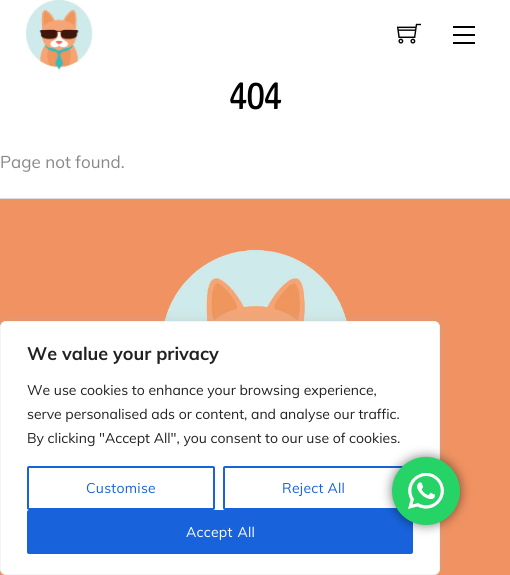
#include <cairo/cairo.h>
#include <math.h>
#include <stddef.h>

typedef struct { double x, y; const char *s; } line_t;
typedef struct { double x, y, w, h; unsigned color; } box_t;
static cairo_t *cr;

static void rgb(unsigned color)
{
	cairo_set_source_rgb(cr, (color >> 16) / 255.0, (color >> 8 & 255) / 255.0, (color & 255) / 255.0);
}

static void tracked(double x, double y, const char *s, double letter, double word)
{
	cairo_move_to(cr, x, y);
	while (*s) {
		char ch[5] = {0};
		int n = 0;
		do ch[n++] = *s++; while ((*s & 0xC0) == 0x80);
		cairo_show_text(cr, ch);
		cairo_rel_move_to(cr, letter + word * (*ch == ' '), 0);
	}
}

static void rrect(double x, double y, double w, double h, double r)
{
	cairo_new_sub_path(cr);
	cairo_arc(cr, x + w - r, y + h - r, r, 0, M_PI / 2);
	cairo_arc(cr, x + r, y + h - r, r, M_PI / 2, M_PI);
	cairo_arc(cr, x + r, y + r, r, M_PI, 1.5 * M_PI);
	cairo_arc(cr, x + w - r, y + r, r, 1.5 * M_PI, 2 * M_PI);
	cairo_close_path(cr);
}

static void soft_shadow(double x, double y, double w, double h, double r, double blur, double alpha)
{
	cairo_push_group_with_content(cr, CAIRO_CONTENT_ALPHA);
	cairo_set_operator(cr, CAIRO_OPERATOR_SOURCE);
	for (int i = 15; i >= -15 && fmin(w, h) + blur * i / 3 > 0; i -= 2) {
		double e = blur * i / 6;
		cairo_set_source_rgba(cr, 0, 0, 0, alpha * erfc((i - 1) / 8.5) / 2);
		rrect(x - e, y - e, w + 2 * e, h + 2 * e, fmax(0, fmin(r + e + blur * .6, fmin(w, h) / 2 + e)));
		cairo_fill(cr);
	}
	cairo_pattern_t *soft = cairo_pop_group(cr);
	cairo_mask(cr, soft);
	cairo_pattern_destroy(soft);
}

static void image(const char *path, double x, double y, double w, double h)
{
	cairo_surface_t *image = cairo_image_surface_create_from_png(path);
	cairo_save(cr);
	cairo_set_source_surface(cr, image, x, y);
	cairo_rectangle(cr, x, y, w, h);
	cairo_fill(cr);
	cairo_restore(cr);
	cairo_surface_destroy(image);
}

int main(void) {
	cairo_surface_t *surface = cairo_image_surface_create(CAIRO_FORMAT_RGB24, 510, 575);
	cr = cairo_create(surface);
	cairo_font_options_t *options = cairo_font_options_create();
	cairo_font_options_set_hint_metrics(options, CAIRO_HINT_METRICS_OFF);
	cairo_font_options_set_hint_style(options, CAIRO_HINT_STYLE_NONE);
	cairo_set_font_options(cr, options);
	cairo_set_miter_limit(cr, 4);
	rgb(0xffffff);
	cairo_paint(cr);
	image("img/1.png", 26, 0, 67, 70);
	image("img/2.png", 397, 23, 24, 21);
	{
		static const box_t items[] = {
			{453, 26, 22, 2, 0x000000},
			{453, 42, 22, 2, 0x000000},
			{453, 34, 22, 2, 0x000000},
			{0, 199, 510, 376, 0xf19262},
			{0, 198, 510, 1, 0xdedede},
		};
		for (size_t i = 0; i < sizeof items / sizeof *items; i++) {
			rgb(items[i].color);
			cairo_rectangle(cr, items[i].x, items[i].y, items[i].w, items[i].h);
			cairo_fill(cr);
		}
	}
	image("img/3.png", 164, 249, 183, 72);
	rgb(0xacabab);
	soft_shadow(0, 320, 440, 254, 6, 5, 0.3);
	rgb(0xffffff);
	rrect(0.5, 321.5, 439, 253, 5.5);
	cairo_fill_preserve(cr);
	rgb(0xf4f4f4);
	cairo_set_line_width(cr, 1);
	cairo_stroke(cr);
	rrect(28, 467, 186, 42, 1);
	rgb(0x1863dc);
	cairo_set_line_width(cr, 2);
	cairo_stroke(cr);
	rrect(224, 467, 180, 42, 1);
	cairo_stroke(cr);
	rrect(28, 511, 384, 42, 1);
	cairo_fill_preserve(cr);
	cairo_stroke(cr);
	rgb(0x000000);
	soft_shadow(392, 457, 68, 68, 34, 5.5, 0.5);
	rgb(0x25d366);
	cairo_arc(cr, 426, 491, 34, 0, 2 * M_PI);
	cairo_fill(cr);
	image("img/4.png", 408, 473, 36, 36);
	cairo_select_font_face(cr, "Yanone Kaffeesatz ExtraLight", CAIRO_FONT_SLANT_NORMAL, CAIRO_FONT_WEIGHT_NORMAL);
	cairo_set_font_size(cr, 44);
	rgb(0x000000);
	tracked(229, 109, "404", -1, 0);
	cairo_select_font_face(cr, "Muli", CAIRO_FONT_SLANT_NORMAL, CAIRO_FONT_WEIGHT_NORMAL);
	cairo_set_font_size(cr, 17);
	rgb(0x888888);
	cairo_move_to(cr, 0, 168);
	cairo_show_text(cr, "Page not found.");
	cairo_select_font_face(cr, "Muli", CAIRO_FONT_SLANT_NORMAL, CAIRO_FONT_WEIGHT_BOLD);
	cairo_set_font_size(cr, 18);
	rgb(0x212121);
	cairo_move_to(cr, 27, 360);
	cairo_show_text(cr, "We value your privacy");
	cairo_select_font_face(cr, "Muli", CAIRO_FONT_SLANT_NORMAL, CAIRO_FONT_WEIGHT_NORMAL);
	cairo_set_font_size(cr, 14);
	{
		static const line_t items[] = {
			{27, 395, "We use cookies to enhance your browsing experience,"},
			{27, 419, "serve personalised ads or content, and analyse our traffic."},
			{27, 443, "By clicking \"Accept All\", you consent to our use of cookies."},
		};
		for (size_t i = 0; i < sizeof items / sizeof *items; i++) {
			cairo_move_to(cr, items[i].x, items[i].y);
			cairo_show_text(cr, items[i].s);
		}
	}
	rgb(0x1863dc);
	tracked(86, 493, "Customise", 0.25, 0);
	tracked(282, 493, "Reject All", 0.25, 0);
	rgb(0xffffff);
	tracked(186, 537, "Accept All", 0.25, 1);
	cairo_surface_write_to_png(surface, "page.png");
	cairo_font_options_destroy(options);
	cairo_destroy(cr);
	cairo_surface_destroy(surface);
	return 0;
}
